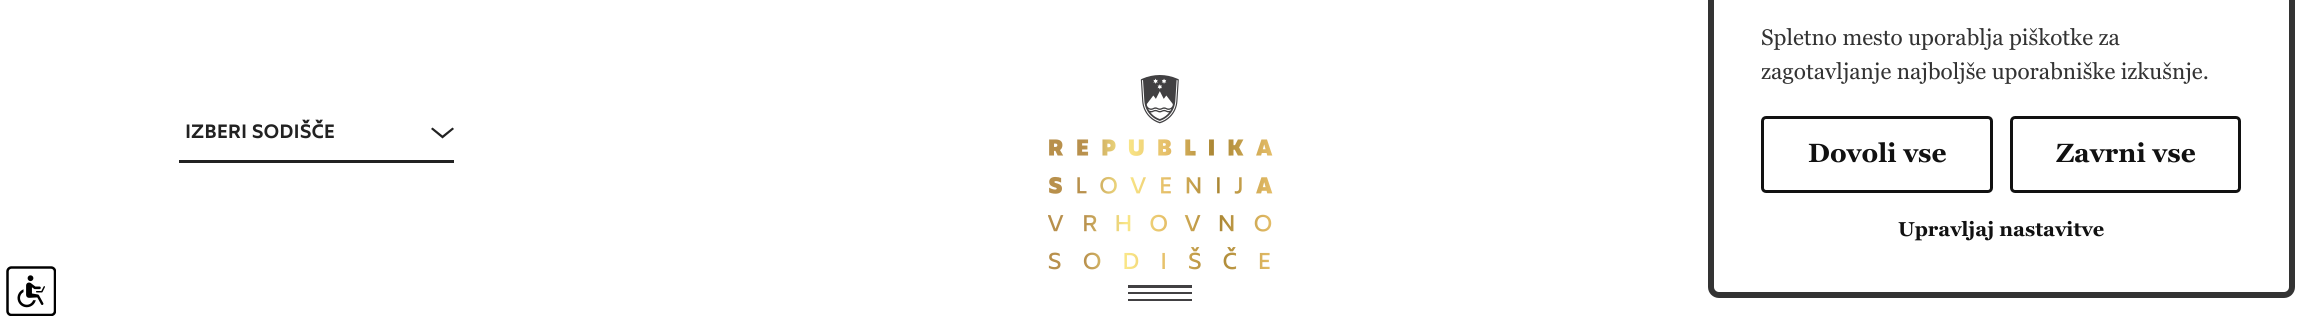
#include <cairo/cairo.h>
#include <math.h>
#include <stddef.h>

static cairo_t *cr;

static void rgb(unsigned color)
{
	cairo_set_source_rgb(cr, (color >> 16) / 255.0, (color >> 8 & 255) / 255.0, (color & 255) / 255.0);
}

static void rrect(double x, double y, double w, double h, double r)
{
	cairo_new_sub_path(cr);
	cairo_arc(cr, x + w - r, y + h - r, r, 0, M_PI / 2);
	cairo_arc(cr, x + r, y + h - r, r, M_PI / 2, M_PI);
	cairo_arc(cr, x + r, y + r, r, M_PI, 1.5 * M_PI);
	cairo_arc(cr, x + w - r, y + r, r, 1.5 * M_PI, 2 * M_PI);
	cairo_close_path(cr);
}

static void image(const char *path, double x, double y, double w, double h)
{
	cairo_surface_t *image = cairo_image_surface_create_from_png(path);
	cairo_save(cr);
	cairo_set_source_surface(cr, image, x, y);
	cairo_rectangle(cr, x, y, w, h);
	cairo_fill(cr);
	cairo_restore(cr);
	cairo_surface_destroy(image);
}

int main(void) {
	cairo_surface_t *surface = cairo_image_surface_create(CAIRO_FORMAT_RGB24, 2320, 322);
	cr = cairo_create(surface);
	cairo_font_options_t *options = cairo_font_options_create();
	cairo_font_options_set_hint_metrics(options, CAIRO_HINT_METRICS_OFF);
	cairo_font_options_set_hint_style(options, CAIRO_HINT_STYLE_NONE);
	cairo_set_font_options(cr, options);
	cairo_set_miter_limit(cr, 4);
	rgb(0xffffff);
	cairo_paint(cr);
	rgb(0x222222);
	cairo_set_fill_rule(cr, CAIRO_FILL_RULE_EVEN_ODD);
	cairo_new_path(cr);
	cairo_move_to(cr, 442.5, 138.5);
	cairo_line_to(cr, 454, 129);
	cairo_line_to(cr, 452.5, 127.5);
	cairo_line_to(cr, 442.5, 135.5);
	cairo_line_to(cr, 432.5, 127.5);
	cairo_line_to(cr, 431, 129);
	cairo_close_path(cr);
	cairo_fill(cr);
	cairo_rectangle(cr, 179, 160, 275, 3);
	cairo_fill(cr);
	image("img/1.png", 1048, 75, 225, 226);
	rrect(1711, -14, 581, 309, 8);
	rgb(0x333333);
	cairo_set_line_width(cr, 6);
	cairo_stroke(cr);
	rrect(1762.5, 117.5, 229, 74, 3.5);
	rgb(0x111111);
	cairo_set_line_width(cr, 3);
	cairo_stroke(cr);
	rrect(2011.5, 117.5, 228, 74, 3.5);
	cairo_stroke(cr);
	image("img/2.png", 6, 266, 50, 50);
	cairo_select_font_face(cr, "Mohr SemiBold", CAIRO_FONT_SLANT_NORMAL, CAIRO_FONT_WEIGHT_NORMAL);
	cairo_set_font_size(cr, 18.75);
	rgb(0x222222);
	cairo_move_to(cr, 185, 138);
	cairo_show_text(cr, "IZBERI SODIŠČE");
	cairo_select_font_face(cr, "Georgia", CAIRO_FONT_SLANT_NORMAL, CAIRO_FONT_WEIGHT_NORMAL);
	cairo_set_font_size(cr, 22.5);
	rgb(0x333333);
	cairo_move_to(cr, 1761, 45);
	cairo_show_text(cr, "Spletno mesto uporablja piškotke za");
	cairo_move_to(cr, 1761, 79);
	cairo_show_text(cr, "zagotavljanje najboljše uporabniške izkušnje.");
	cairo_select_font_face(cr, "Georgia", CAIRO_FONT_SLANT_NORMAL, CAIRO_FONT_WEIGHT_BOLD);
	cairo_set_font_size(cr, 26.25);
	rgb(0x111111);
	cairo_move_to(cr, 1808, 162);
	cairo_show_text(cr, "Dovoli vse");
	cairo_move_to(cr, 2056, 162);
	cairo_show_text(cr, "Zavrni vse");
	cairo_set_font_size(cr, 20);
	cairo_move_to(cr, 1898, 236);
	cairo_show_text(cr, "Upravljaj nastavitve");
	cairo_surface_write_to_png(surface, "page.png");
	cairo_font_options_destroy(options);
	cairo_destroy(cr);
	cairo_surface_destroy(surface);
	return 0;
}
